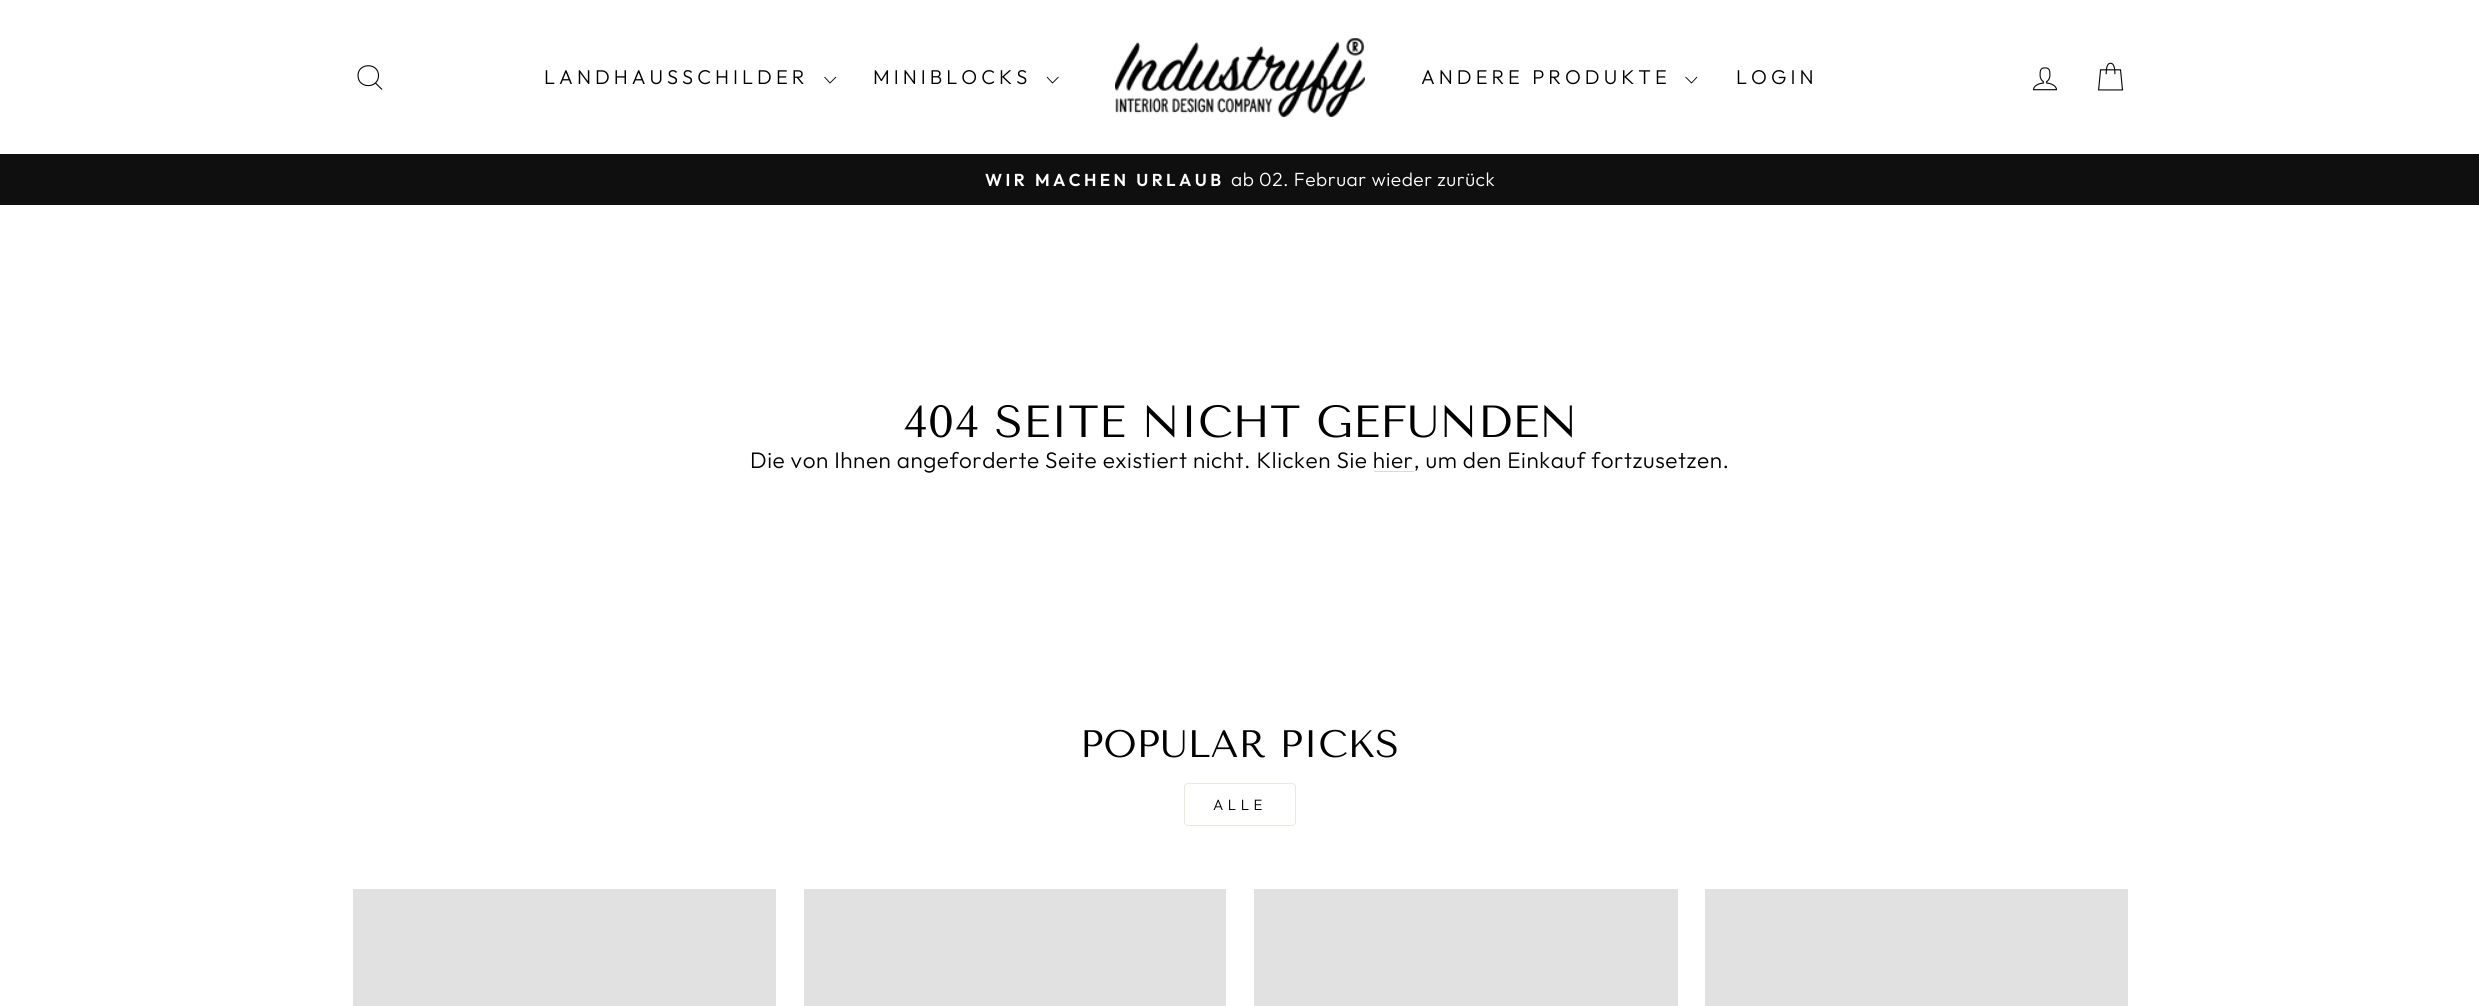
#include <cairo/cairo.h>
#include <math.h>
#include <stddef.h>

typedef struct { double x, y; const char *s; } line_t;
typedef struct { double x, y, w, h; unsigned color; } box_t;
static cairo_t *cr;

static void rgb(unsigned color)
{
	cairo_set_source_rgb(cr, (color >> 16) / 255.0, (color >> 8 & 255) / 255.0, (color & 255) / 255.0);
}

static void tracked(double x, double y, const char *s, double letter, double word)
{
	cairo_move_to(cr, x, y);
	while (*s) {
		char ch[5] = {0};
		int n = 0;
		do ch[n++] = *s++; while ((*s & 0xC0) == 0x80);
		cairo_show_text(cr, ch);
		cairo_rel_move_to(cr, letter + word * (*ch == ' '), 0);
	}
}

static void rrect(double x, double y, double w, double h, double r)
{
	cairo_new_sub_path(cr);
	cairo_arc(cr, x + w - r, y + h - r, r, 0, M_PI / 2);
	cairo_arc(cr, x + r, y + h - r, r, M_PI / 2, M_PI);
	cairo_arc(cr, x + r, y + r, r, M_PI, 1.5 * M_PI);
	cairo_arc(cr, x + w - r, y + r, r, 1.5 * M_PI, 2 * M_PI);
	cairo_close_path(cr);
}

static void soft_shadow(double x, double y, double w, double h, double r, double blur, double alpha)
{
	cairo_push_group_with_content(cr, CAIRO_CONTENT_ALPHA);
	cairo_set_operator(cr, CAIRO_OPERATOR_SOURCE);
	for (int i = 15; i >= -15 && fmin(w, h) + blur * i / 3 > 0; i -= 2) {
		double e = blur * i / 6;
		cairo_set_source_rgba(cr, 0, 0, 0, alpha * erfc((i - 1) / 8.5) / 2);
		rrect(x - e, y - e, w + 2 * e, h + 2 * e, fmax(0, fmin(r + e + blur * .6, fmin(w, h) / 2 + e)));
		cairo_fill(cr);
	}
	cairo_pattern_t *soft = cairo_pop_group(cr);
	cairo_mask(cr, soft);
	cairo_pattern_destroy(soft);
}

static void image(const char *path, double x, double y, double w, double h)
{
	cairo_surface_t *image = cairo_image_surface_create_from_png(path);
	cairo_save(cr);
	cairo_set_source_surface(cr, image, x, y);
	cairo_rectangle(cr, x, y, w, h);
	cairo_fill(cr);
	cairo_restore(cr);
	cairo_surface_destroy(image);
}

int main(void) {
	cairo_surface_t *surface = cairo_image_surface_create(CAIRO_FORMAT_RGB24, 2479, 1006);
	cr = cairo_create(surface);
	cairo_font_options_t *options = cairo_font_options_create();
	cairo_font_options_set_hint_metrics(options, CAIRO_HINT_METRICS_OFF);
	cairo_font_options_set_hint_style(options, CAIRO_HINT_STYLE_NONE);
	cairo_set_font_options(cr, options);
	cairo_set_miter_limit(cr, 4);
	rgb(0xffffff);
	cairo_paint(cr);
	rgb(0x0f0f0f);
	cairo_rectangle(cr, 0, 154, 2479, 51);
	cairo_fill(cr);
	rgb(0x000000);
	soft_shadow(0, 0, 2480, 154, 0, 0.5, 0.2);
	rgb(0xffffff);
	cairo_rectangle(cr, 0, 0, 2479, 154);
	cairo_fill(cr);
	cairo_new_path(cr);
	cairo_move_to(cr, 378.5, 75.5);
	cairo_curve_to(cr, 378.5, 89, 358, 89, 358, 75.5);
	cairo_curve_to(cr, 358, 62.5, 378.5, 62.5, 378.5, 75.5);
	cairo_close_path(cr);
	cairo_move_to(cr, 382, 89.5);
	cairo_line_to(cr, 375.5, 83);
	rgb(0x000000);
	cairo_set_line_width(cr, 1.1);
	cairo_stroke(cr);
	cairo_new_path(cr);
	cairo_move_to(cr, 824.5, 77);
	cairo_line_to(cr, 830, 83);
	cairo_line_to(cr, 836, 77);
	cairo_set_line_width(cr, 0.9);
	cairo_stroke(cr);
	cairo_new_path(cr);
	cairo_move_to(cr, 1047, 77);
	cairo_line_to(cr, 1052.5, 83);
	cairo_line_to(cr, 1058.5, 77);
	cairo_stroke(cr);
	image("img/1.png", 1115, 38, 250, 79);
	cairo_new_path(cr);
	cairo_move_to(cr, 1685.5, 77);
	cairo_line_to(cr, 1691.5, 83);
	cairo_line_to(cr, 1697, 77);
	cairo_stroke(cr);
	image("img/2.png", 2033, 67, 24, 24);
	image("img/3.png", 2098, 62, 26, 29);
	rrect(1184.5, 783.5, 111, 42, 3.5);
	rgb(0xe8e8e1);
	cairo_set_line_width(cr, 1);
	cairo_stroke(cr);
	{
		static const box_t items[] = {
			{353, 889, 423, 117, 0xe1e1e1},
			{804, 889, 422, 117, 0xe1e1e1},
			{1254, 889, 424, 117, 0xe1e1e1},
			{1705, 889, 423, 117, 0xe1e1e1},
		};
		for (size_t i = 0; i < sizeof items / sizeof *items; i++) {
			rgb(items[i].color);
			cairo_rectangle(cr, items[i].x, items[i].y, items[i].w, items[i].h);
			cairo_fill(cr);
		}
	}
	cairo_select_font_face(cr, "Outfit Light", CAIRO_FONT_SLANT_NORMAL, CAIRO_FONT_WEIGHT_NORMAL);
	cairo_set_font_size(cr, 20);
	rgb(0x000000);
	{
		static const line_t items[] = {
			{544, 84, "LANDHAUSSCHILDER"},
			{873, 84, "MINIBLOCKS"},
			{1421, 84, "ANDERE PRODUKTE"},
			{1736, 84, "LOGIN"},
		};
		for (size_t i = 0; i < sizeof items / sizeof *items; i++) {
			tracked(items[i].x, items[i].y, items[i].s, 4, 0);
		}
	}
	cairo_select_font_face(cr, "Outfit SemiBold", CAIRO_FONT_SLANT_NORMAL, CAIRO_FONT_WEIGHT_NORMAL);
	cairo_set_font_size(cr, 17.25);
	rgb(0xffffff);
	tracked(985, 186, "WIR MACHEN URLAUB", 3.4, 0);
	cairo_select_font_face(cr, "Outfit Light", CAIRO_FONT_SLANT_NORMAL, CAIRO_FONT_WEIGHT_NORMAL);
	cairo_set_font_size(cr, 19.1);
	tracked(1231, 186, "ab 02. Februar wieder zurück", 0.55, 0);
	cairo_select_font_face(cr, "Tenor Sans", CAIRO_FONT_SLANT_NORMAL, CAIRO_FONT_WEIGHT_NORMAL);
	cairo_set_font_size(cr, 45);
	rgb(0x000000);
	cairo_move_to(cr, 903, 437);
	cairo_show_text(cr, "404 SEITE NICHT GEFUNDEN");
	cairo_select_font_face(cr, "Outfit Light", CAIRO_FONT_SLANT_NORMAL, CAIRO_FONT_WEIGHT_NORMAL);
	cairo_set_font_size(cr, 22.5);
	tracked(750, 468, "Die von Ihnen angeforderte Seite existiert nicht. Klicken Sie hier, um den Einkauf fortzusetzen.", 0.55, 0);
	rgb(0xd9d9d9);
	cairo_rectangle(cr, 1374, 471, 40, 1);
	cairo_fill(cr);
	cairo_select_font_face(cr, "Tenor Sans", CAIRO_FONT_SLANT_NORMAL, CAIRO_FONT_WEIGHT_NORMAL);
	cairo_set_font_size(cr, 38.25);
	rgb(0x000000);
	cairo_move_to(cr, 1080, 757);
	cairo_show_text(cr, "POPULAR PICKS");
	cairo_select_font_face(cr, "Outfit Light", CAIRO_FONT_SLANT_NORMAL, CAIRO_FONT_WEIGHT_NORMAL);
	cairo_set_font_size(cr, 15);
	tracked(1213, 810, "ALLE", 4.5, 0);
	cairo_surface_write_to_png(surface, "page.png");
	cairo_font_options_destroy(options);
	cairo_destroy(cr);
	cairo_surface_destroy(surface);
	return 0;
}
